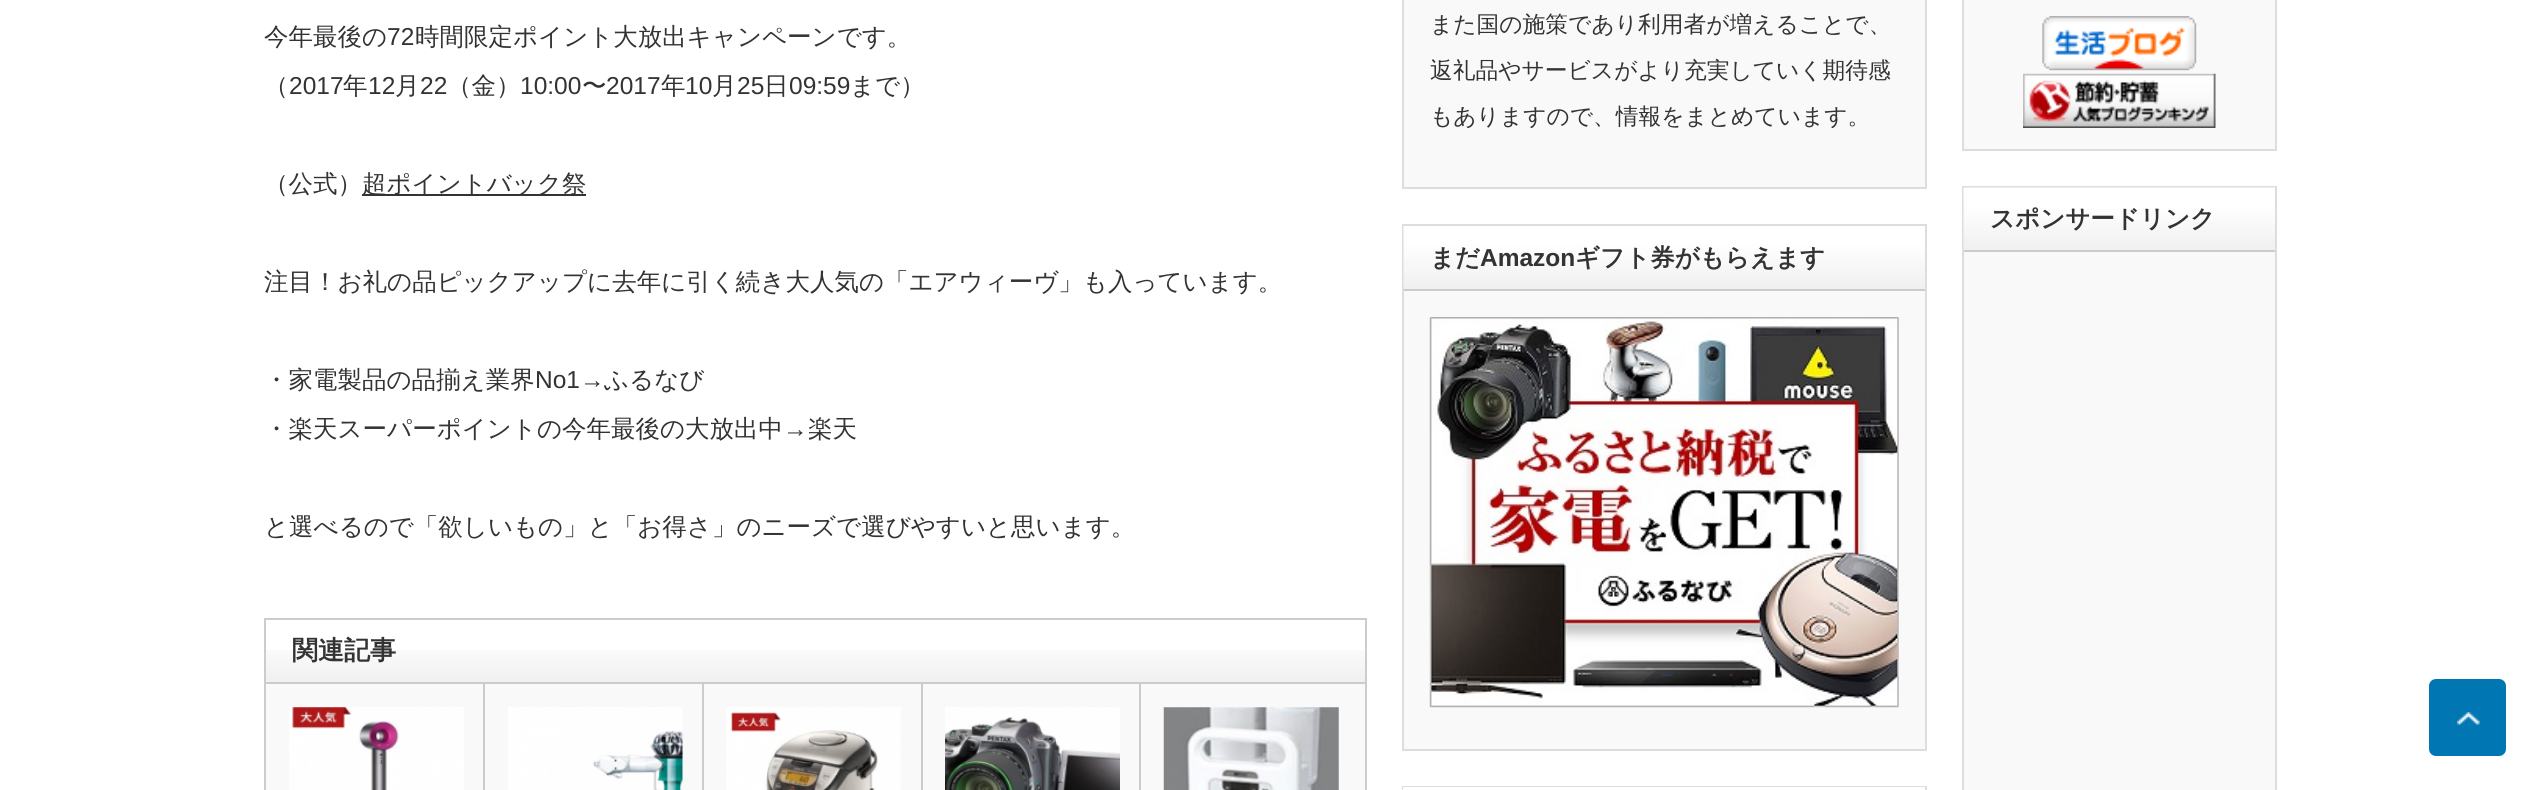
#include <cairo/cairo.h>
#include <math.h>
#include <stddef.h>

typedef struct { double x, y; const char *s; } line_t;
typedef struct { double x, y, w, h; unsigned color; } box_t;
static cairo_t *cr;

static void rgb(unsigned color)
{
	cairo_set_source_rgb(cr, (color >> 16) / 255.0, (color >> 8 & 255) / 255.0, (color & 255) / 255.0);
}

static void rrect(double x, double y, double w, double h, double r)
{
	cairo_new_sub_path(cr);
	cairo_arc(cr, x + w - r, y + h - r, r, 0, M_PI / 2);
	cairo_arc(cr, x + r, y + h - r, r, M_PI / 2, M_PI);
	cairo_arc(cr, x + r, y + r, r, M_PI, 1.5 * M_PI);
	cairo_arc(cr, x + w - r, y + r, r, 1.5 * M_PI, 2 * M_PI);
	cairo_close_path(cr);
}

static void image(const char *path, double x, double y, double w, double h)
{
	cairo_surface_t *image = cairo_image_surface_create_from_png(path);
	cairo_save(cr);
	cairo_set_source_surface(cr, image, x, y);
	cairo_rectangle(cr, x, y, w, h);
	cairo_fill(cr);
	cairo_restore(cr);
	cairo_surface_destroy(image);
}

int main(void) {
	cairo_surface_t *surface = cairo_image_surface_create(CAIRO_FORMAT_RGB24, 2541, 790);
	cr = cairo_create(surface);
	cairo_font_options_t *options = cairo_font_options_create();
	cairo_font_options_set_hint_metrics(options, CAIRO_HINT_METRICS_OFF);
	cairo_font_options_set_hint_style(options, CAIRO_HINT_STYLE_NONE);
	cairo_set_font_options(cr, options);
	cairo_set_miter_limit(cr, 4);
	rgb(0xffffff);
	cairo_paint(cr);
	rgb(0x333333);
	cairo_rectangle(cr, 362, 194, 224, 2);
	cairo_fill(cr);
	image("img/1.png", 266, 650, 1099, 32);
	cairo_rectangle(cr, 265, 619, 1101, 64);
	rgb(0xcccccc);
	cairo_stroke(cr);
	{
		static const box_t items[] = {
			{266, 684, 1099, 106, 0xf9f9f9},
			{1365, 684, 2, 106, 0xcccccc},
			{264, 684, 2, 106, 0xcccccc},
			{483, 684, 2, 106, 0xcccccc},
		};
		for (size_t i = 0; i < sizeof items / sizeof *items; i++) {
			rgb(items[i].color);
			cairo_rectangle(cr, items[i].x, items[i].y, items[i].w, items[i].h);
			cairo_fill(cr);
		}
	}
	image("img/2.png", 289, 707, 175, 83);
	cairo_rectangle(cr, 702, 684, 2, 106);
	cairo_fill(cr);
	image("img/3.png", 508, 707, 175, 83);
	cairo_rectangle(cr, 921, 684, 2, 106);
	cairo_fill(cr);
	image("img/4.png", 726, 707, 175, 83);
	cairo_rectangle(cr, 1139, 684, 2, 106);
	cairo_fill(cr);
	image("img/5.png", 945, 707, 175, 83);
	image("img/6.png", 1163, 707, 176, 83);
	rgb(0xf9f9f9);
	cairo_rectangle(cr, 1403, -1, 523, 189);
	cairo_fill_preserve(cr);
	rgb(0xdddddd);
	cairo_stroke(cr);
	rgb(0xf9f9f9);
	cairo_rectangle(cr, 1404, 291, 521, 458);
	cairo_fill(cr);
	cairo_rectangle(cr, 1403, 225, 523, 525);
	rgb(0xdddddd);
	cairo_stroke(cr);
	image("img/7.png", 1403, 226, 522, 63);
	rgb(0xcccccc);
	cairo_rectangle(cr, 1404, 289, 521, 2);
	cairo_fill(cr);
	image("img/8.png", 1429, 317, 470, 391);
	cairo_rectangle(cr, 1403, 787, 523, 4);
	rgb(0xdddddd);
	cairo_stroke(cr);
	rgb(0xffffff);
	cairo_rectangle(cr, 1403, 787, 522, 3);
	cairo_fill(cr);
	rgb(0xf9f9f9);
	cairo_rectangle(cr, 1963, -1, 313, 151);
	cairo_fill_preserve(cr);
	rgb(0xdddddd);
	cairo_stroke(cr);
	image("img/9.png", 2042, 16, 155, 55);
	image("img/10.png", 2023, 73, 193, 55);
	rgb(0xf9f9f9);
	cairo_rectangle(cr, 1964, 252, 311, 538);
	cairo_fill(cr);
	cairo_rectangle(cr, 1963, 187, 313, 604);
	rgb(0xdddddd);
	cairo_stroke(cr);
	image("img/11.png", 1963, 187, 312, 64);
	rgb(0xcccccc);
	cairo_rectangle(cr, 1964, 250, 311, 2);
	cairo_fill(cr);
	rgb(0x0077b3);
	rrect(2429, 679, 77, 77, 7);
	cairo_fill(cr);
	image("img/12.png", 2457, 712, 23, 13);
	cairo_select_font_face(cr, "WenQuanYi Zen Hei Medium", CAIRO_FONT_SLANT_NORMAL, CAIRO_FONT_WEIGHT_NORMAL);
	cairo_set_font_size(cr, 24.5);
	rgb(0x333333);
	cairo_move_to(cr, 264, 45);
	cairo_show_text(cr, "今年最後の");
	cairo_select_font_face(cr, "Liberation Sans", CAIRO_FONT_SLANT_NORMAL, CAIRO_FONT_WEIGHT_NORMAL);
	cairo_move_to(cr, 387, 45);
	cairo_show_text(cr, "72");
	cairo_select_font_face(cr, "WenQuanYi Zen Hei Medium", CAIRO_FONT_SLANT_NORMAL, CAIRO_FONT_WEIGHT_NORMAL);
	cairo_move_to(cr, 415, 45);
	cairo_show_text(cr, "時間限定ポイント大放出キャンペーンです。");
	cairo_move_to(cr, 264, 94);
	cairo_show_text(cr, "（");
	cairo_select_font_face(cr, "Liberation Sans", CAIRO_FONT_SLANT_NORMAL, CAIRO_FONT_WEIGHT_NORMAL);
	cairo_move_to(cr, 289, 94);
	cairo_show_text(cr, "2017");
	cairo_select_font_face(cr, "WenQuanYi Zen Hei Medium", CAIRO_FONT_SLANT_NORMAL, CAIRO_FONT_WEIGHT_NORMAL);
	cairo_move_to(cr, 343, 94);
	cairo_show_text(cr, "年");
	cairo_select_font_face(cr, "Liberation Sans", CAIRO_FONT_SLANT_NORMAL, CAIRO_FONT_WEIGHT_NORMAL);
	cairo_move_to(cr, 368, 94);
	cairo_show_text(cr, "12");
	cairo_select_font_face(cr, "WenQuanYi Zen Hei Medium", CAIRO_FONT_SLANT_NORMAL, CAIRO_FONT_WEIGHT_NORMAL);
	cairo_move_to(cr, 395, 94);
	cairo_show_text(cr, "月");
	cairo_select_font_face(cr, "Liberation Sans", CAIRO_FONT_SLANT_NORMAL, CAIRO_FONT_WEIGHT_NORMAL);
	cairo_move_to(cr, 420, 94);
	cairo_show_text(cr, "22");
	cairo_select_font_face(cr, "WenQuanYi Zen Hei Medium", CAIRO_FONT_SLANT_NORMAL, CAIRO_FONT_WEIGHT_NORMAL);
	cairo_move_to(cr, 447, 94);
	cairo_show_text(cr, "（金）");
	cairo_select_font_face(cr, "Liberation Sans", CAIRO_FONT_SLANT_NORMAL, CAIRO_FONT_WEIGHT_NORMAL);
	cairo_move_to(cr, 520, 94);
	cairo_show_text(cr, "10:00");
	cairo_select_font_face(cr, "WenQuanYi Zen Hei Medium", CAIRO_FONT_SLANT_NORMAL, CAIRO_FONT_WEIGHT_NORMAL);
	cairo_move_to(cr, 582, 94);
	cairo_show_text(cr, "〜");
	cairo_select_font_face(cr, "Liberation Sans", CAIRO_FONT_SLANT_NORMAL, CAIRO_FONT_WEIGHT_NORMAL);
	cairo_move_to(cr, 606, 94);
	cairo_show_text(cr, "2017");
	cairo_select_font_face(cr, "WenQuanYi Zen Hei Medium", CAIRO_FONT_SLANT_NORMAL, CAIRO_FONT_WEIGHT_NORMAL);
	cairo_move_to(cr, 661, 94);
	cairo_show_text(cr, "年");
	cairo_select_font_face(cr, "Liberation Sans", CAIRO_FONT_SLANT_NORMAL, CAIRO_FONT_WEIGHT_NORMAL);
	cairo_move_to(cr, 685, 94);
	cairo_show_text(cr, "10");
	cairo_select_font_face(cr, "WenQuanYi Zen Hei Medium", CAIRO_FONT_SLANT_NORMAL, CAIRO_FONT_WEIGHT_NORMAL);
	cairo_move_to(cr, 712, 94);
	cairo_show_text(cr, "月");
	cairo_select_font_face(cr, "Liberation Sans", CAIRO_FONT_SLANT_NORMAL, CAIRO_FONT_WEIGHT_NORMAL);
	cairo_move_to(cr, 737, 94);
	cairo_show_text(cr, "25");
	cairo_select_font_face(cr, "WenQuanYi Zen Hei Medium", CAIRO_FONT_SLANT_NORMAL, CAIRO_FONT_WEIGHT_NORMAL);
	cairo_move_to(cr, 764, 94);
	cairo_show_text(cr, "日");
	cairo_select_font_face(cr, "Liberation Sans", CAIRO_FONT_SLANT_NORMAL, CAIRO_FONT_WEIGHT_NORMAL);
	cairo_move_to(cr, 789, 94);
	cairo_show_text(cr, "09:59");
	cairo_select_font_face(cr, "WenQuanYi Zen Hei Medium", CAIRO_FONT_SLANT_NORMAL, CAIRO_FONT_WEIGHT_NORMAL);
	{
		static const line_t items[] = {
			{850, 94, "まで）"},
			{264, 192, "（公式）"},
			{362, 192, "超ポイントバック祭"},
			{264, 290, "注目！お礼の品ピックアップに去年に引く続き大人気の「エアウィーヴ」も入っています。"},
			{264, 388, "・家電製品の品揃え業界"},
		};
		for (size_t i = 0; i < sizeof items / sizeof *items; i++) {
			cairo_move_to(cr, items[i].x, items[i].y);
			cairo_show_text(cr, items[i].s);
		}
	}
	cairo_select_font_face(cr, "Liberation Sans", CAIRO_FONT_SLANT_NORMAL, CAIRO_FONT_WEIGHT_NORMAL);
	cairo_move_to(cr, 535, 388);
	cairo_show_text(cr, "No1→");
	cairo_select_font_face(cr, "WenQuanYi Zen Hei Medium", CAIRO_FONT_SLANT_NORMAL, CAIRO_FONT_WEIGHT_NORMAL);
	cairo_move_to(cr, 604, 388);
	cairo_show_text(cr, "ふるなび");
	cairo_move_to(cr, 264, 437);
	cairo_show_text(cr, "・楽天スーパーポイントの今年最後の大放出中");
	cairo_select_font_face(cr, "Liberation Sans", CAIRO_FONT_SLANT_NORMAL, CAIRO_FONT_WEIGHT_NORMAL);
	cairo_move_to(cr, 783, 437);
	cairo_show_text(cr, "→");
	cairo_select_font_face(cr, "WenQuanYi Zen Hei Medium", CAIRO_FONT_SLANT_NORMAL, CAIRO_FONT_WEIGHT_NORMAL);
	cairo_move_to(cr, 808, 437);
	cairo_show_text(cr, "楽天");
	cairo_move_to(cr, 264, 535);
	cairo_show_text(cr, "と選べるので「欲しいもの」と「お得さ」のニーズで選びやすいと思います。");
	cairo_select_font_face(cr, "WenQuanYi Zen Hei", CAIRO_FONT_SLANT_NORMAL, CAIRO_FONT_WEIGHT_BOLD);
	cairo_set_font_size(cr, 26);
	cairo_move_to(cr, 292, 659);
	cairo_show_text(cr, "関連記事");
	cairo_select_font_face(cr, "WenQuanYi Zen Hei Medium", CAIRO_FONT_SLANT_NORMAL, CAIRO_FONT_WEIGHT_NORMAL);
	cairo_set_font_size(cr, 22.75);
	{
		static const line_t items[] = {
			{1430, 32, "また国の施策であり利用者が増えることで、"},
			{1430, 78, "返礼品やサービスがより充実していく期待感"},
			{1430, 124, "もありますので、情報をまとめています。"},
		};
		for (size_t i = 0; i < sizeof items / sizeof *items; i++) {
			cairo_move_to(cr, items[i].x, items[i].y);
			cairo_show_text(cr, items[i].s);
		}
	}
	cairo_select_font_face(cr, "WenQuanYi Zen Hei", CAIRO_FONT_SLANT_NORMAL, CAIRO_FONT_WEIGHT_BOLD);
	cairo_set_font_size(cr, 24.5);
	cairo_move_to(cr, 1430, 266);
	cairo_show_text(cr, "まだ");
	cairo_select_font_face(cr, "Liberation Sans", CAIRO_FONT_SLANT_NORMAL, CAIRO_FONT_WEIGHT_BOLD);
	cairo_move_to(cr, 1480, 266);
	cairo_show_text(cr, "Amazon");
	cairo_select_font_face(cr, "WenQuanYi Zen Hei", CAIRO_FONT_SLANT_NORMAL, CAIRO_FONT_WEIGHT_BOLD);
	cairo_move_to(cr, 1575, 266);
	cairo_show_text(cr, "ギフト券がもらえます");
	cairo_move_to(cr, 1990, 227);
	cairo_show_text(cr, "スポンサードリンク");
	cairo_surface_write_to_png(surface, "page.png");
	cairo_font_options_destroy(options);
	cairo_destroy(cr);
	cairo_surface_destroy(surface);
	return 0;
}
